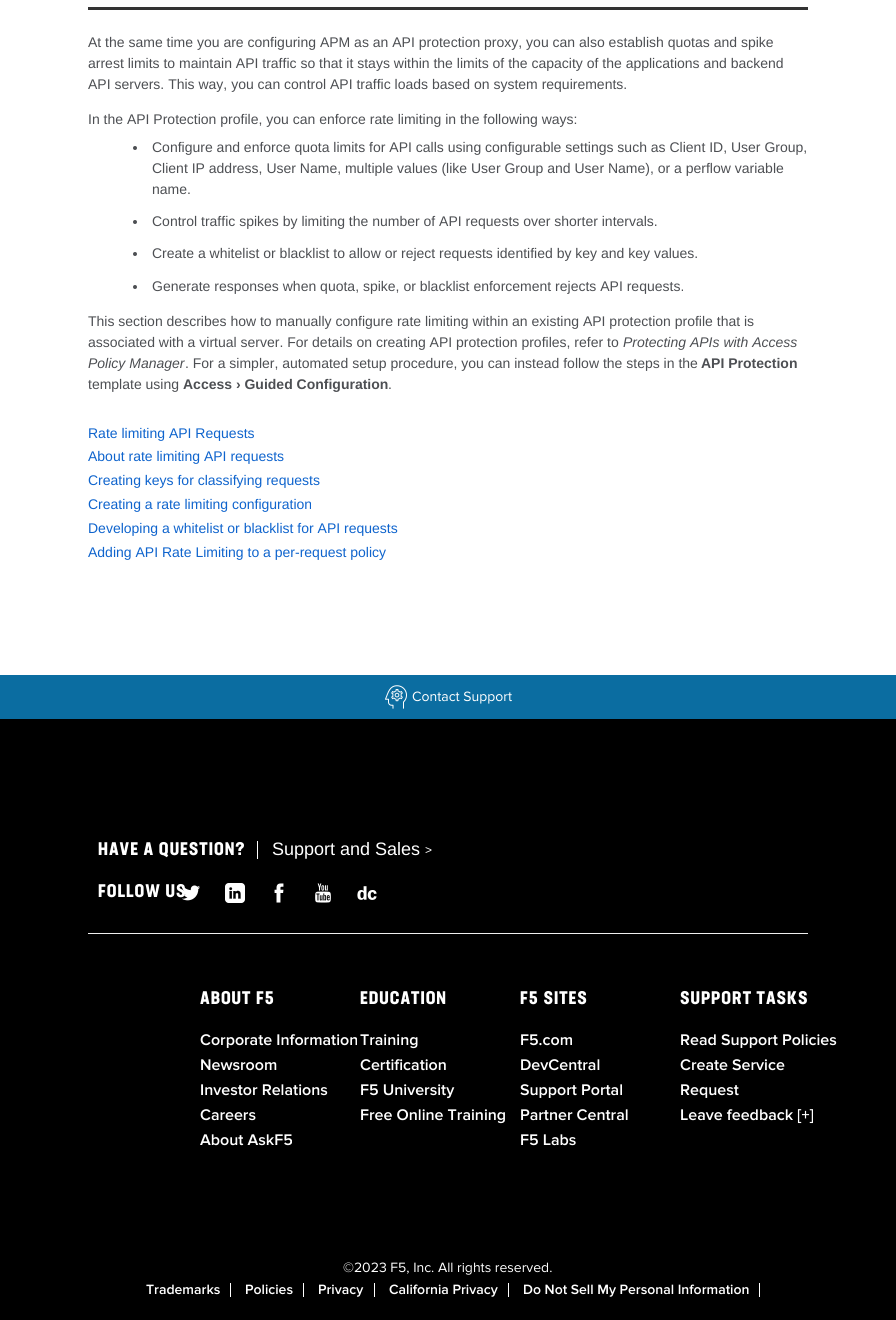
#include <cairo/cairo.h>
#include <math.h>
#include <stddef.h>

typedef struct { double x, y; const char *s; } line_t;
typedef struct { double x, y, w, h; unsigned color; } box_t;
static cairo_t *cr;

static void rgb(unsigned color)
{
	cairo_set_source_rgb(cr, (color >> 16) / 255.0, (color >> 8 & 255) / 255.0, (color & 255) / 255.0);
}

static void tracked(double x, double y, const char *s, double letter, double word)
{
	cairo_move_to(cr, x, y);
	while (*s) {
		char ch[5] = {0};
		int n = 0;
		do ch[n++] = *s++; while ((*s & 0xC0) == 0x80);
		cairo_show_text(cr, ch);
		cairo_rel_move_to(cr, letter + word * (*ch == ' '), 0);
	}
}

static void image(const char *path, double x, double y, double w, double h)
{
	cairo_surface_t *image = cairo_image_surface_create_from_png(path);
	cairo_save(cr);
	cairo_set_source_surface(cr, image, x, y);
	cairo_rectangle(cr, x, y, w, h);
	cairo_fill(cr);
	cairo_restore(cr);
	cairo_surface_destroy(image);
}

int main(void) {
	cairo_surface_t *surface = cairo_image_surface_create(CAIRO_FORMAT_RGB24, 896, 1320);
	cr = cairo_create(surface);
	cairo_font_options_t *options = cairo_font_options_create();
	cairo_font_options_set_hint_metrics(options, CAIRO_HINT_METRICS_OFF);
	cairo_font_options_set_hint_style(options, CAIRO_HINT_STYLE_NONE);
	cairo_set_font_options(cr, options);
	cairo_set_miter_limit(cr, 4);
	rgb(0xffffff);
	cairo_paint(cr);
	rgb(0x333333);
	cairo_rectangle(cr, 88, 7, 720, 3);
	cairo_fill(cr);
	rgb(0x4d4f53);
	cairo_arc(cr, 135, 148, 2, 0, 2 * M_PI);
	cairo_fill(cr);
	cairo_arc(cr, 135, 222, 2, 0, 2 * M_PI);
	cairo_fill(cr);
	cairo_arc(cr, 135, 254, 2, 0, 2 * M_PI);
	cairo_fill(cr);
	cairo_arc(cr, 135, 287, 2, 0, 2 * M_PI);
	cairo_fill(cr);
	rgb(0x0b6da1);
	cairo_rectangle(cr, 0, 675, 896, 44);
	cairo_fill(cr);
	image("img/1.png", 385, 685, 22, 24);
	rgb(0x000000);
	cairo_rectangle(cr, 0, 719, 896, 601);
	cairo_fill(cr);
	rgb(0xffffff);
	cairo_rectangle(cr, 257, 841, 1, 18);
	cairo_fill(cr);
	image("img/3.png", 225, 883, 20, 20);
	image("img/4.png", 274, 883, 10, 20);
	image("img/5.png", 315, 883, 16, 20);
	image("img/6.png", 357, 886, 20, 14);
	{
		static const box_t items[] = {
			{88, 933, 720, 1, 0xeeeeee},
			{230, 1283, 1, 14, 0xffffff},
			{303, 1283, 1, 14, 0xffffff},
			{374, 1283, 1, 14, 0xffffff},
			{508, 1283, 1, 14, 0xffffff},
			{759, 1283, 1, 14, 0xffffff},
		};
		for (size_t i = 0; i < sizeof items / sizeof *items; i++) {
			rgb(items[i].color);
			cairo_rectangle(cr, items[i].x, items[i].y, items[i].w, items[i].h);
			cairo_fill(cr);
		}
	}
	cairo_select_font_face(cr, "Liberation Sans", CAIRO_FONT_SLANT_NORMAL, CAIRO_FONT_WEIGHT_NORMAL);
	cairo_set_font_size(cr, 14);
	rgb(0x4d4f53);
	{
		static const line_t items[] = {
			{88, 47, "At the same time you are configuring APM as an API protection proxy, you can also establish quotas and spike"},
			{88, 68, "arrest limits to maintain API traffic so that it stays within the limits of the capacity of the applications and backend"},
			{88, 89, "API servers. This way, you can control API traffic loads based on system requirements."},
			{88, 124, "In the API Protection profile, you can enforce rate limiting in the following ways:"},
			{152, 152, "Configure and enforce quota limits for API calls using configurable settings such as Client ID, User Group,"},
			{152, 173, "Client IP address, User Name, multiple values (like User Group and User Name), or a perflow variable"},
			{152, 194, "name."},
			{152, 226, "Control traffic spikes by limiting the number of API requests over shorter intervals."},
			{152, 258, "Create a whitelist or blacklist to allow or reject requests identified by key and key values."},
			{152, 291, "Generate responses when quota, spike, or blacklist enforcement rejects API requests."},
			{88, 326, "This section describes how to manually configure rate limiting within an existing API protection profile that is"},
			{88, 347, "associated with a virtual server. For details on creating API protection profiles, refer to"},
		};
		for (size_t i = 0; i < sizeof items / sizeof *items; i++) {
			cairo_move_to(cr, items[i].x, items[i].y);
			cairo_show_text(cr, items[i].s);
		}
	}
	cairo_select_font_face(cr, "Liberation Sans", CAIRO_FONT_SLANT_ITALIC, CAIRO_FONT_WEIGHT_NORMAL);
	cairo_move_to(cr, 623, 347);
	cairo_show_text(cr, "Protecting APIs with Access");
	cairo_move_to(cr, 88, 368);
	cairo_show_text(cr, "Policy Manager");
	cairo_select_font_face(cr, "Liberation Sans", CAIRO_FONT_SLANT_NORMAL, CAIRO_FONT_WEIGHT_NORMAL);
	cairo_move_to(cr, 185, 368);
	cairo_show_text(cr, ". For a simpler, automated setup procedure, you can instead follow the steps in the");
	cairo_select_font_face(cr, "Liberation Sans", CAIRO_FONT_SLANT_NORMAL, CAIRO_FONT_WEIGHT_BOLD);
	cairo_move_to(cr, 701, 368);
	cairo_show_text(cr, "API Protection");
	cairo_select_font_face(cr, "Liberation Sans", CAIRO_FONT_SLANT_NORMAL, CAIRO_FONT_WEIGHT_NORMAL);
	cairo_move_to(cr, 88, 389);
	cairo_show_text(cr, "template using");
	cairo_select_font_face(cr, "Liberation Sans", CAIRO_FONT_SLANT_NORMAL, CAIRO_FONT_WEIGHT_BOLD);
	cairo_move_to(cr, 183, 389);
	cairo_show_text(cr, "Access › Guided Configuration");
	cairo_select_font_face(cr, "Liberation Sans", CAIRO_FONT_SLANT_NORMAL, CAIRO_FONT_WEIGHT_NORMAL);
	cairo_move_to(cr, 388, 389);
	cairo_show_text(cr, ".");
	rgb(0x0f64cd);
	{
		static const line_t items[] = {
			{88, 438, "Rate limiting API Requests"},
			{88, 461, "About rate limiting API requests"},
			{88, 485, "Creating keys for classifying requests"},
			{88, 509, "Creating a rate limiting configuration"},
			{88, 533, "Developing a whitelist or blacklist for API requests"},
			{88, 557, "Adding API Rate Limiting to a per-request policy"},
		};
		for (size_t i = 0; i < sizeof items / sizeof *items; i++) {
			cairo_move_to(cr, items[i].x, items[i].y);
			cairo_show_text(cr, items[i].s);
		}
	}
	cairo_select_font_face(cr, "Proxima Nova", CAIRO_FONT_SLANT_NORMAL, CAIRO_FONT_WEIGHT_NORMAL);
	rgb(0xffffff);
	cairo_move_to(cr, 412, 701);
	cairo_show_text(cr, "Contact Support");
	cairo_select_font_face(cr, "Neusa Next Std", CAIRO_FONT_SLANT_NORMAL, CAIRO_FONT_WEIGHT_BOLD);
	cairo_set_font_size(cr, 18);
	tracked(98, 855, "HAVE A QUESTION?", 1, 0);
	cairo_select_font_face(cr, "Liberation Sans", CAIRO_FONT_SLANT_NORMAL, CAIRO_FONT_WEIGHT_NORMAL);
	cairo_move_to(cr, 272, 855);
	cairo_show_text(cr, "Support and Sales");
	cairo_set_font_size(cr, 12);
	cairo_move_to(cr, 425, 854);
	cairo_show_text(cr, ">");
	cairo_select_font_face(cr, "Neusa Next Std", CAIRO_FONT_SLANT_NORMAL, CAIRO_FONT_WEIGHT_BOLD);
	cairo_set_font_size(cr, 18);
	tracked(98, 897, "FOLLOW US", 1, 0);
	image("img/2.png", 182, 885, 18, 16);
	tracked(200, 1004, "ABOUT F5", 1, 0);
	cairo_select_font_face(cr, "Proxima Nova SemiBold", CAIRO_FONT_SLANT_NORMAL, CAIRO_FONT_WEIGHT_NORMAL);
	cairo_set_font_size(cr, 16);
	{
		static const line_t items[] = {
			{200, 1045, "Corporate Information"},
			{200, 1070, "Newsroom"},
			{200, 1095, "Investor Relations"},
			{200, 1120, "Careers"},
			{200, 1145, "About AskF5"},
		};
		for (size_t i = 0; i < sizeof items / sizeof *items; i++) {
			cairo_move_to(cr, items[i].x, items[i].y);
			cairo_show_text(cr, items[i].s);
		}
	}
	cairo_select_font_face(cr, "Neusa Next Std", CAIRO_FONT_SLANT_NORMAL, CAIRO_FONT_WEIGHT_BOLD);
	cairo_set_font_size(cr, 18);
	tracked(360, 1004, "EDUCATION", 1, 0);
	cairo_select_font_face(cr, "Proxima Nova SemiBold", CAIRO_FONT_SLANT_NORMAL, CAIRO_FONT_WEIGHT_NORMAL);
	cairo_set_font_size(cr, 16);
	{
		static const line_t items[] = {
			{360, 1045, "Training"},
			{360, 1070, "Certification"},
			{360, 1095, "F5 University"},
			{360, 1120, "Free Online Training"},
		};
		for (size_t i = 0; i < sizeof items / sizeof *items; i++) {
			cairo_move_to(cr, items[i].x, items[i].y);
			cairo_show_text(cr, items[i].s);
		}
	}
	cairo_select_font_face(cr, "Neusa Next Std", CAIRO_FONT_SLANT_NORMAL, CAIRO_FONT_WEIGHT_BOLD);
	cairo_set_font_size(cr, 18);
	tracked(520, 1004, "F5 SITES", 1, 0);
	cairo_select_font_face(cr, "Proxima Nova SemiBold", CAIRO_FONT_SLANT_NORMAL, CAIRO_FONT_WEIGHT_NORMAL);
	cairo_set_font_size(cr, 16);
	{
		static const line_t items[] = {
			{520, 1045, "F5.com"},
			{520, 1070, "DevCentral"},
			{520, 1095, "Support Portal"},
			{520, 1120, "Partner Central"},
			{520, 1145, "F5 Labs"},
		};
		for (size_t i = 0; i < sizeof items / sizeof *items; i++) {
			cairo_move_to(cr, items[i].x, items[i].y);
			cairo_show_text(cr, items[i].s);
		}
	}
	cairo_select_font_face(cr, "Neusa Next Std", CAIRO_FONT_SLANT_NORMAL, CAIRO_FONT_WEIGHT_BOLD);
	cairo_set_font_size(cr, 18);
	tracked(680, 1004, "SUPPORT TASKS", 1, 0);
	cairo_select_font_face(cr, "Proxima Nova SemiBold", CAIRO_FONT_SLANT_NORMAL, CAIRO_FONT_WEIGHT_NORMAL);
	cairo_set_font_size(cr, 16);
	{
		static const line_t items[] = {
			{680, 1045, "Read Support Policies"},
			{680, 1070, "Create Service"},
			{680, 1095, "Request"},
			{680, 1120, "Leave feedback [+]"},
		};
		for (size_t i = 0; i < sizeof items / sizeof *items; i++) {
			cairo_move_to(cr, items[i].x, items[i].y);
			cairo_show_text(cr, items[i].s);
		}
	}
	cairo_select_font_face(cr, "Proxima Nova", CAIRO_FONT_SLANT_NORMAL, CAIRO_FONT_WEIGHT_NORMAL);
	cairo_set_font_size(cr, 14);
	cairo_move_to(cr, 343, 1272);
	cairo_show_text(cr, "©2023 F5, Inc. All rights reserved.");
	cairo_select_font_face(cr, "Proxima Nova SemiBold", CAIRO_FONT_SLANT_NORMAL, CAIRO_FONT_WEIGHT_NORMAL);
	{
		static const line_t items[] = {
			{146, 1294, "Trademarks"},
			{245, 1294, "Policies"},
			{318, 1294, "Privacy"},
			{389, 1294, "California Privacy"},
			{523, 1294, "Do Not Sell My Personal Information"},
		};
		for (size_t i = 0; i < sizeof items / sizeof *items; i++) {
			cairo_move_to(cr, items[i].x, items[i].y);
			cairo_show_text(cr, items[i].s);
		}
	}
	cairo_surface_write_to_png(surface, "page.png");
	cairo_font_options_destroy(options);
	cairo_destroy(cr);
	cairo_surface_destroy(surface);
	return 0;
}
